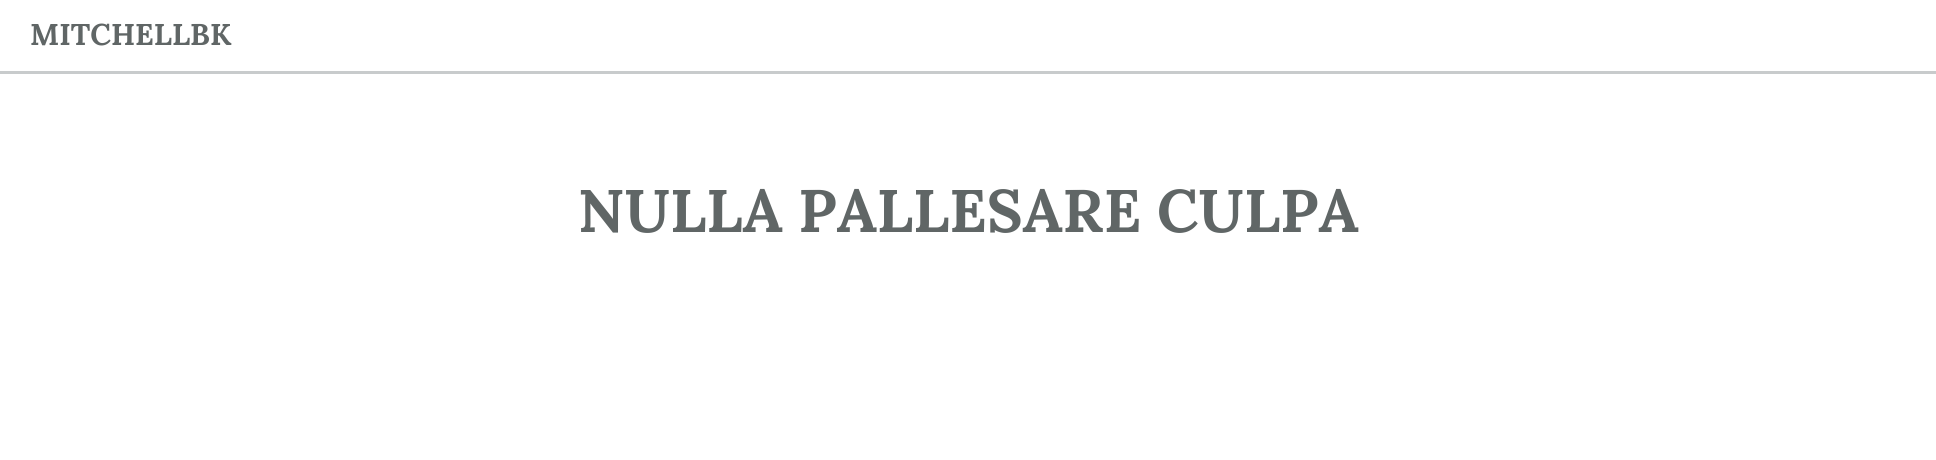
#include <cairo/cairo.h>
#include <math.h>
#include <stddef.h>

static cairo_t *cr;

static void rgb(unsigned color)
{
	cairo_set_source_rgb(cr, (color >> 16) / 255.0, (color >> 8 & 255) / 255.0, (color & 255) / 255.0);
}

int main(void) {
	cairo_surface_t *surface = cairo_image_surface_create(CAIRO_FORMAT_RGB24, 1936, 460);
	cr = cairo_create(surface);
	cairo_font_options_t *options = cairo_font_options_create();
	cairo_font_options_set_hint_metrics(options, CAIRO_HINT_METRICS_OFF);
	cairo_font_options_set_hint_style(options, CAIRO_HINT_STYLE_NONE);
	cairo_set_font_options(cr, options);
	cairo_set_miter_limit(cr, 4);
	rgb(0xffffff);
	cairo_paint(cr);
	rgb(0xc8cbcc);
	cairo_rectangle(cr, 0, 71, 1936, 3);
	cairo_fill(cr);
	cairo_select_font_face(cr, "Lora", CAIRO_FONT_SLANT_NORMAL, CAIRO_FONT_WEIGHT_BOLD);
	cairo_set_font_size(cr, 30);
	rgb(0x606666);
	cairo_move_to(cr, 30, 45);
	cairo_show_text(cr, "MITCHELLBK");
	cairo_set_font_size(cr, 60);
	cairo_move_to(cr, 578, 232);
	cairo_show_text(cr, "NULLA PALLESARE CULPA");
	cairo_surface_write_to_png(surface, "page.png");
	cairo_font_options_destroy(options);
	cairo_destroy(cr);
	cairo_surface_destroy(surface);
	return 0;
}
